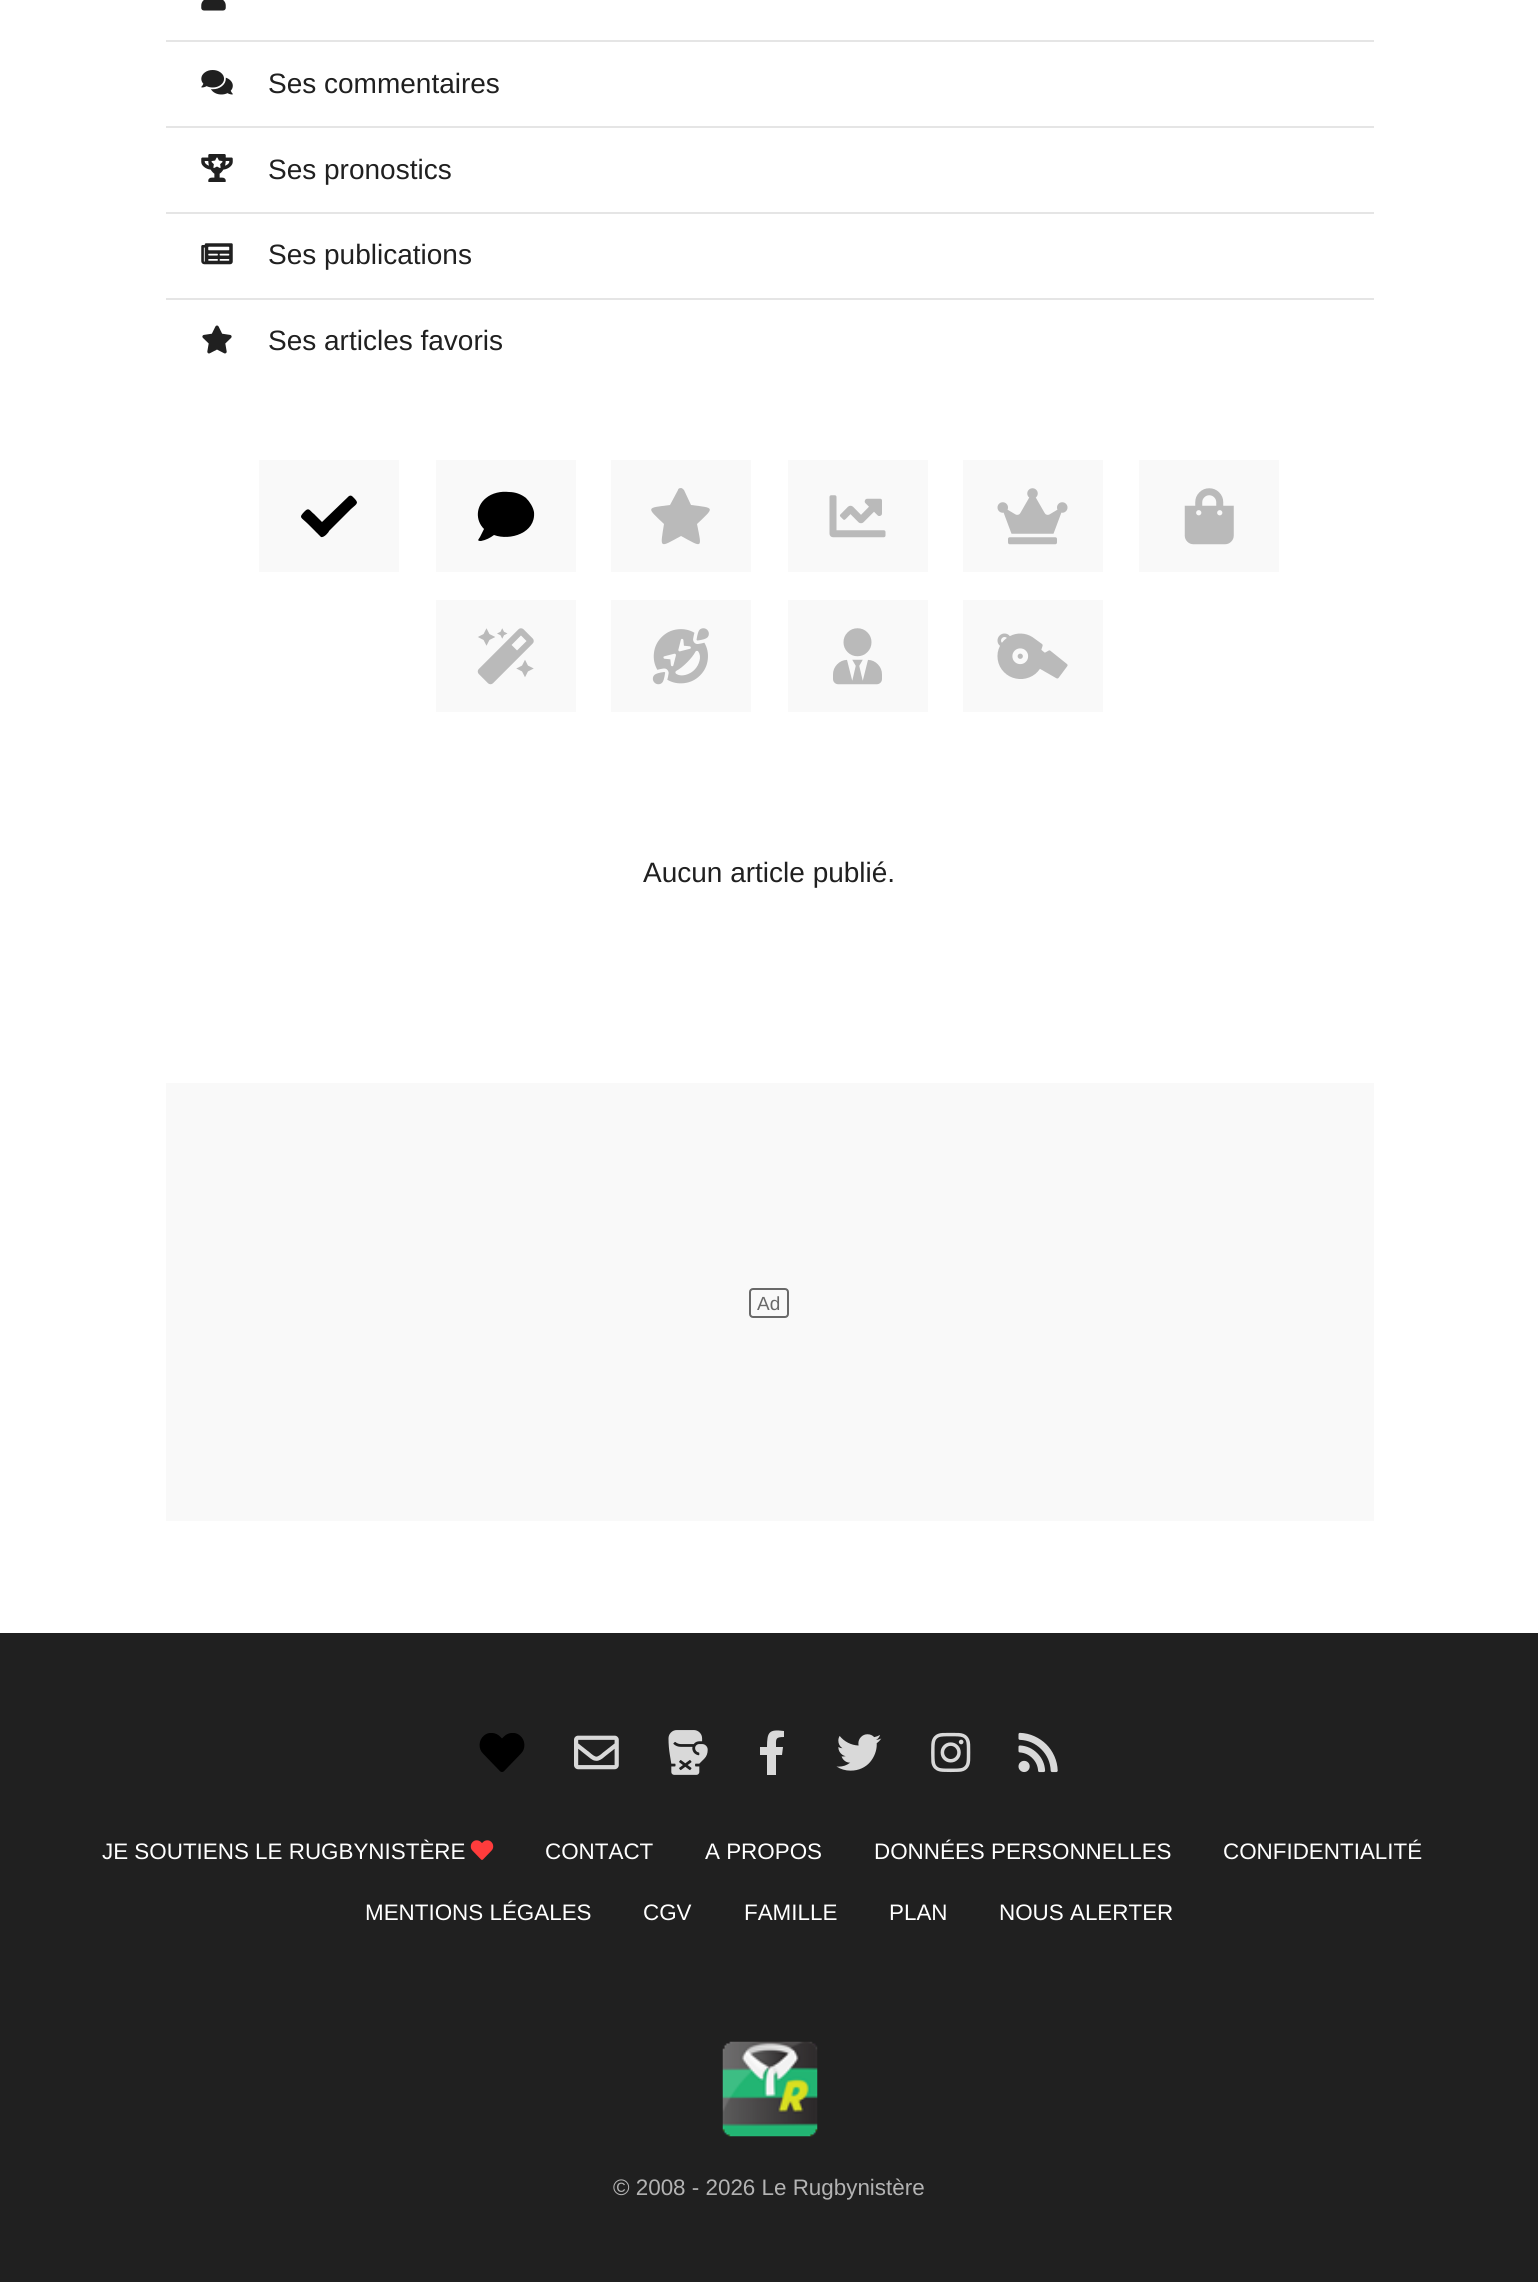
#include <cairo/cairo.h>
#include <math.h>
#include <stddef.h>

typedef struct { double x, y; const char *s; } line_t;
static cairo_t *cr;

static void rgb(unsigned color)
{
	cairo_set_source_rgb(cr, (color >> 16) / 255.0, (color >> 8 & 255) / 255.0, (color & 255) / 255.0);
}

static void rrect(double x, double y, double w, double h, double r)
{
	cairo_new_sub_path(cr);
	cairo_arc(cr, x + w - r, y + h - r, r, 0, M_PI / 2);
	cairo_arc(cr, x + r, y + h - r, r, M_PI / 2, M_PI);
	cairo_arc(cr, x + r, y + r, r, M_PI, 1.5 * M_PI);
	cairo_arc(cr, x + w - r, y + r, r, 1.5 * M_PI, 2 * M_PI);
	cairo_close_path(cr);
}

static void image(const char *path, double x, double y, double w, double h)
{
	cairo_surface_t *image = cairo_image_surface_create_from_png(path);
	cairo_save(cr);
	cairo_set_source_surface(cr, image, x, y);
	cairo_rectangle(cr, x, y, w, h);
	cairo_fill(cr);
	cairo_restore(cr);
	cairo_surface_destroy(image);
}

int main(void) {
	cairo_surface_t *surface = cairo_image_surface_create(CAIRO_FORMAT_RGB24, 1538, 2282);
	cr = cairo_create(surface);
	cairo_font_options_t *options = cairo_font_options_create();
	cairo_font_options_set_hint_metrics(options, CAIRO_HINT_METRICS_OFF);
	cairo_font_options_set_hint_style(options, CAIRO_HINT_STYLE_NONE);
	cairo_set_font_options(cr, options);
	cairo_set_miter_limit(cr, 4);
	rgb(0xffffff);
	cairo_paint(cr);
	image("img/1.png", 201, 0, 25, 11);
	rgb(0xe5e5e5);
	cairo_rectangle(cr, 166, 40, 1208, 2);
	cairo_fill(cr);
	image("img/2.png", 201, 70, 32, 25);
	cairo_rectangle(cr, 166, 126, 1208, 2);
	cairo_fill(cr);
	image("img/3.png", 201, 154, 32, 28);
	cairo_rectangle(cr, 166, 212, 1208, 2);
	cairo_fill(cr);
	image("img/4.png", 201, 243, 32, 22);
	cairo_rectangle(cr, 166, 298, 1208, 2);
	cairo_fill(cr);
	image("img/5.png", 202, 325, 30, 29);
	rgb(0xf9f9f9);
	cairo_rectangle(cr, 259, 460, 140, 112);
	cairo_fill(cr);
	rgb(0x000000);
	cairo_new_path(cr);
	cairo_move_to(cr, 320, 536);
	cairo_line_to(cr, 308, 524);
	cairo_curve_to(cr, 301, 517, 298, 518, 305, 511);
	cairo_curve_to(cr, 309, 507, 310, 511, 314, 514);
	cairo_line_to(cr, 322, 522);
	cairo_line_to(cr, 349, 496);
	cairo_curve_to(cr, 351, 495, 352, 496, 353, 497);
	cairo_curve_to(cr, 359, 503, 358, 503, 351, 509);
	cairo_line_to(cr, 329, 531);
	cairo_curve_to(cr, 329, 532, 324, 538, 321, 537);
	cairo_close_path(cr);
	cairo_fill(cr);
	rgb(0xf9f9f9);
	cairo_rectangle(cr, 436, 460, 140, 112);
	cairo_fill(cr);
	rgb(0x000000);
	cairo_new_path(cr);
	cairo_move_to(cr, 486, 498);
	cairo_curve_to(cr, 492, 493, 501, 491, 509, 492);
	cairo_curve_to(cr, 515, 492, 521, 494, 526, 498);
	cairo_curve_to(cr, 530, 502, 533, 507, 534, 512);
	cairo_curve_to(cr, 536, 533, 510, 541, 494, 535);
	cairo_curve_to(cr, 490, 538, 486, 540, 481, 541);
	cairo_curve_to(cr, 476, 541, 479, 539, 480, 537);
	cairo_line_to(cr, 484, 529);
	cairo_curve_to(cr, 475, 520, 476, 506, 486, 498);
	cairo_close_path(cr);
	cairo_fill(cr);
	rgb(0xf9f9f9);
	cairo_rectangle(cr, 611, 460, 140, 112);
	cairo_fill(cr);
	rgb(0xbababa);
	cairo_new_path(cr);
	cairo_move_to(cr, 678, 490);
	cairo_curve_to(cr, 678, 489, 679, 488, 681, 488);
	cairo_curve_to(cr, 682, 488, 683, 489, 684, 490);
	cairo_line_to(cr, 691, 505);
	cairo_curve_to(cr, 715, 508, 715, 507, 697, 524);
	cairo_curve_to(cr, 702, 549, 703, 548, 681, 536);
	cairo_curve_to(cr, 659, 548, 660, 549, 664, 524);
	cairo_curve_to(cr, 646, 507, 646, 508, 670, 505);
	cairo_close_path(cr);
	cairo_fill(cr);
	rgb(0xf9f9f9);
	cairo_rectangle(cr, 788, 460, 140, 112);
	cairo_fill(cr);
	image("img/6.png", 829, 495, 57, 43);
	cairo_rectangle(cr, 963, 460, 140, 112);
	cairo_fill(cr);
	image("img/7.png", 997, 488, 71, 57);
	cairo_rectangle(cr, 1139, 460, 140, 112);
	cairo_fill(cr);
	image("img/8.png", 1184, 488, 50, 57);
	cairo_rectangle(cr, 436, 600, 140, 112);
	cairo_fill(cr);
	image("img/9.png", 477, 628, 57, 57);
	cairo_rectangle(cr, 611, 600, 140, 112);
	cairo_fill(cr);
	image("img/10.png", 652, 628, 57, 57);
	cairo_rectangle(cr, 788, 600, 140, 112);
	cairo_fill(cr);
	image("img/11.png", 833, 628, 49, 57);
	cairo_rectangle(cr, 963, 600, 140, 112);
	cairo_fill(cr);
	image("img/12.png", 997, 633, 71, 46);
	cairo_rectangle(cr, 166, 1083, 1208, 438);
	cairo_fill(cr);
	rrect(750, 1289, 38, 28, 3);
	rgb(0x696969);
	cairo_stroke(cr);
	rgb(0x202020);
	cairo_rectangle(cr, 0, 1633, 1538, 649);
	cairo_fill(cr);
	image("img/13.png", 479, 1733, 46, 39);
	image("img/14.png", 574, 1735, 45, 35);
	image("img/15.png", 668, 1730, 40, 45);
	rgb(0xd9d9d9);
	cairo_new_path(cr);
	cairo_move_to(cr, 782, 1755);
	cairo_line_to(cr, 776, 1755);
	cairo_line_to(cr, 776, 1775);
	cairo_line_to(cr, 767, 1775);
	cairo_line_to(cr, 767, 1755);
	cairo_line_to(cr, 760, 1755);
	cairo_line_to(cr, 760, 1747);
	cairo_line_to(cr, 767, 1747);
	cairo_curve_to(cr, 767, 1732, 769, 1729, 784, 1731);
	cairo_line_to(cr, 784, 1737);
	cairo_curve_to(cr, 775, 1737, 776, 1739, 776, 1747);
	cairo_line_to(cr, 783, 1747);
	cairo_close_path(cr);
	cairo_fill(cr);
	image("img/16.png", 836, 1734, 46, 37);
	image("img/17.png", 931, 1732, 40, 41);
	image("img/18.png", 1018, 1732, 40, 41);
	image("img/19.png", 470, 1840, 24, 20);
	image("img/20.png", 722, 2041, 96, 96);
	cairo_select_font_face(cr, "Liberation Sans", CAIRO_FONT_SLANT_NORMAL, CAIRO_FONT_WEIGHT_NORMAL);
	cairo_set_font_size(cr, 28);
	rgb(0x202020);
	{
		static const line_t items[] = {
			{268, 93, "Ses commentaires"},
			{268, 179, "Ses pronostics"},
			{268, 264, "Ses publications"},
			{268, 350, "Ses articles favoris"},
			{643, 882, "Aucun article publié."},
		};
		for (size_t i = 0; i < sizeof items / sizeof *items; i++) {
			cairo_move_to(cr, items[i].x, items[i].y);
			cairo_show_text(cr, items[i].s);
		}
	}
	cairo_set_font_size(cr, 19);
	rgb(0x696969);
	cairo_move_to(cr, 757, 1310);
	cairo_show_text(cr, "Ad");
	cairo_set_font_size(cr, 22.4);
	rgb(0xffffff);
	{
		static const line_t items[] = {
			{102, 1859, "JE SOUTIENS LE RUGBYNISTÈRE"},
			{545, 1859, "CONTACT"},
			{705, 1859, "A PROPOS"},
			{874, 1859, "DONNÉES PERSONNELLES"},
			{1223, 1859, "CONFIDENTIALITÉ"},
			{365, 1920, "MENTIONS LÉGALES"},
			{643, 1920, "CGV"},
			{744, 1920, "FAMILLE"},
			{889, 1920, "PLAN"},
			{999, 1920, "NOUS ALERTER"},
		};
		for (size_t i = 0; i < sizeof items / sizeof *items; i++) {
			cairo_move_to(cr, items[i].x, items[i].y);
			cairo_show_text(cr, items[i].s);
		}
	}
	rgb(0xb3b3b3);
	cairo_move_to(cr, 613, 2195);
	cairo_show_text(cr, "© 2008 - 2026 Le Rugbynistère");
	cairo_surface_write_to_png(surface, "page.png");
	cairo_font_options_destroy(options);
	cairo_destroy(cr);
	cairo_surface_destroy(surface);
	return 0;
}
